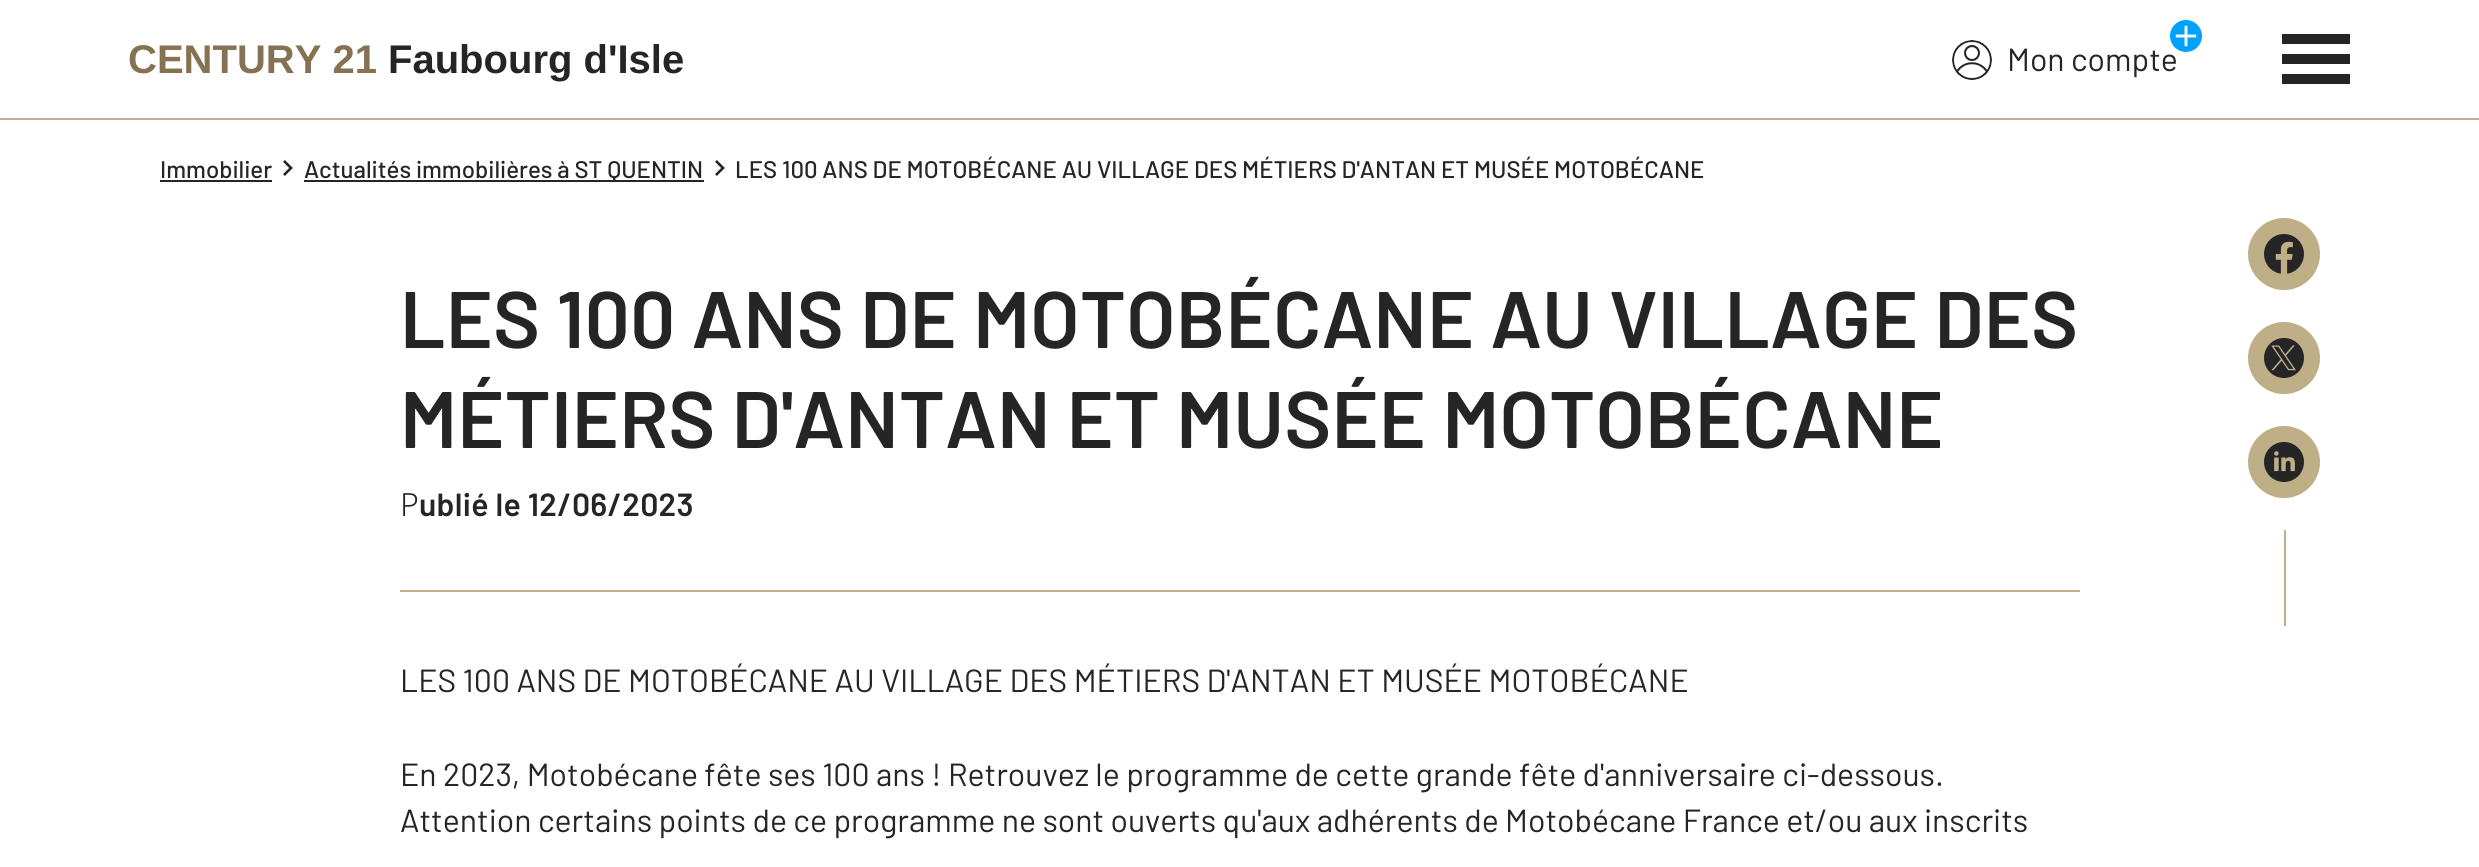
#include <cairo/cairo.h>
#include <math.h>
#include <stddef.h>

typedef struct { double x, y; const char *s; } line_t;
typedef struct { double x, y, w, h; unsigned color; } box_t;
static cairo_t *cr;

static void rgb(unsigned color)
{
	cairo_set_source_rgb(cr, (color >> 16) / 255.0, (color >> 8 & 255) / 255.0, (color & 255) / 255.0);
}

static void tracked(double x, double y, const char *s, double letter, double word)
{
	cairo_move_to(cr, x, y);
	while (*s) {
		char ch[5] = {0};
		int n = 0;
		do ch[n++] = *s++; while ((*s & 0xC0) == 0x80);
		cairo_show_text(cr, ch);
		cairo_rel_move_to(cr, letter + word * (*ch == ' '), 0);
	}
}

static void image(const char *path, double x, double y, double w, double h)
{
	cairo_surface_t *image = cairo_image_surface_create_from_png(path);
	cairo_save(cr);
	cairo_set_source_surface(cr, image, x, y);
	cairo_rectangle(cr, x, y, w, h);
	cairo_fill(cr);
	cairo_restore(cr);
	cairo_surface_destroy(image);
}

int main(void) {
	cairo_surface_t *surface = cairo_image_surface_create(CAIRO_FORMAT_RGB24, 2479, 867);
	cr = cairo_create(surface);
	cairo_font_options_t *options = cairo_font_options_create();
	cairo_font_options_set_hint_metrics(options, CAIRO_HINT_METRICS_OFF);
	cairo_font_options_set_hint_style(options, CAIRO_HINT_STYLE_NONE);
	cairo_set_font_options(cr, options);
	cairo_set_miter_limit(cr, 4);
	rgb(0xffffff);
	cairo_paint(cr);
	rgb(0xbeaf87);
	cairo_rectangle(cr, 0, 118, 2479, 2);
	cairo_fill(cr);
	image("img/2.png", 1952, 40, 40, 40);
	{
		static const box_t items[] = {
			{2282, 74, 68, 10, 0x252526},
			{2282, 34, 68, 10, 0x252526},
			{2282, 54, 68, 10, 0x252526},
			{160, 180, 112, 2, 0x252526},
		};
		for (size_t i = 0; i < sizeof items / sizeof *items; i++) {
			rgb(items[i].color);
			cairo_rectangle(cr, items[i].x, items[i].y, items[i].w, items[i].h);
			cairo_fill(cr);
		}
	}
	image("img/3.png", 283, 160, 10, 16);
	cairo_rectangle(cr, 304, 180, 400, 2);
	cairo_fill(cr);
	image("img/3.png", 715, 160, 10, 16);
	rgb(0xbeaf87);
	cairo_rectangle(cr, 400, 590, 1680, 2);
	cairo_fill(cr);
	cairo_arc(cr, 2284, 254, 36, 0, 2 * M_PI);
	cairo_fill(cr);
	image("img/4.png", 2264, 234, 40, 40);
	cairo_arc(cr, 2284, 358, 36, 0, 2 * M_PI);
	cairo_fill(cr);
	image("img/5.png", 2264, 338, 40, 40);
	cairo_arc(cr, 2284, 462, 36, 0, 2 * M_PI);
	cairo_fill(cr);
	image("img/6.png", 2264, 442, 40, 40);
	cairo_rectangle(cr, 2284, 530, 2, 96);
	cairo_fill(cr);
	cairo_select_font_face(cr, "Liberation Sans", CAIRO_FONT_SLANT_NORMAL, CAIRO_FONT_WEIGHT_BOLD);
	cairo_set_font_size(cr, 40);
	rgb(0x847252);
	cairo_move_to(cr, 128, 73);
	cairo_show_text(cr, "CENTURY 21");
	rgb(0x252526);
	cairo_move_to(cr, 388, 73);
	cairo_show_text(cr, "Faubourg d'Isle");
	cairo_select_font_face(cr, "Barlow", CAIRO_FONT_SLANT_NORMAL, CAIRO_FONT_WEIGHT_NORMAL);
	cairo_set_font_size(cr, 32);
	cairo_move_to(cr, 2007, 71);
	cairo_show_text(cr, "Mon compte");
	image("img/1.png", 2170, 20, 32, 32);
	cairo_select_font_face(cr, "Barlow Medium", CAIRO_FONT_SLANT_NORMAL, CAIRO_FONT_WEIGHT_NORMAL);
	cairo_set_font_size(cr, 24);
	{
		static const line_t items[] = {
			{160, 178, "Immobilier"},
			{304, 178, "Actualités immobilières à ST QUENTIN"},
			{735, 178, "LES 100 ANS DE MOTOBÉCANE AU VILLAGE DES MÉTIERS D'ANTAN ET MUSÉE MOTOBÉCANE"},
		};
		for (size_t i = 0; i < sizeof items / sizeof *items; i++) {
			cairo_move_to(cr, items[i].x, items[i].y);
			cairo_show_text(cr, items[i].s);
		}
	}
	cairo_select_font_face(cr, "Barlow SemiBold", CAIRO_FONT_SLANT_NORMAL, CAIRO_FONT_WEIGHT_NORMAL);
	cairo_set_font_size(cr, 80);
	cairo_move_to(cr, 400, 348);
	cairo_show_text(cr, "LES 100 ANS DE MOTOBÉCANE AU VILLAGE DES");
	cairo_move_to(cr, 400, 448);
	cairo_show_text(cr, "MÉTIERS D'ANTAN ET MUSÉE MOTOBÉCANE");
	cairo_select_font_face(cr, "Noto Sans Light", CAIRO_FONT_SLANT_NORMAL, CAIRO_FONT_WEIGHT_NORMAL);
	cairo_set_font_size(cr, 32);
	tracked(400, 516, "P", 0.3, 0);
	cairo_select_font_face(cr, "Barlow SemiBold", CAIRO_FONT_SLANT_NORMAL, CAIRO_FONT_WEIGHT_NORMAL);
	tracked(419, 516, "ublié le 12/06/2023", 0.3, 0);
	cairo_select_font_face(cr, "Barlow", CAIRO_FONT_SLANT_NORMAL, CAIRO_FONT_WEIGHT_NORMAL);
	{
		static const line_t items[] = {
			{400, 692, "LES 100 ANS DE MOTOBÉCANE AU VILLAGE DES MÉTIERS D'ANTAN ET MUSÉE MOTOBÉCANE"},
			{400, 786, "En 2023, Motobécane fête ses 100 ans ! Retrouvez le programme de cette grande fête d'anniversaire ci-dessous."},
			{400, 832, "Attention certains points de ce programme ne sont ouverts qu'aux adhérents de Motobécane France et/ou aux inscrits"},
		};
		for (size_t i = 0; i < sizeof items / sizeof *items; i++) {
			cairo_move_to(cr, items[i].x, items[i].y);
			cairo_show_text(cr, items[i].s);
		}
	}
	cairo_surface_write_to_png(surface, "page.png");
	cairo_font_options_destroy(options);
	cairo_destroy(cr);
	cairo_surface_destroy(surface);
	return 0;
}
